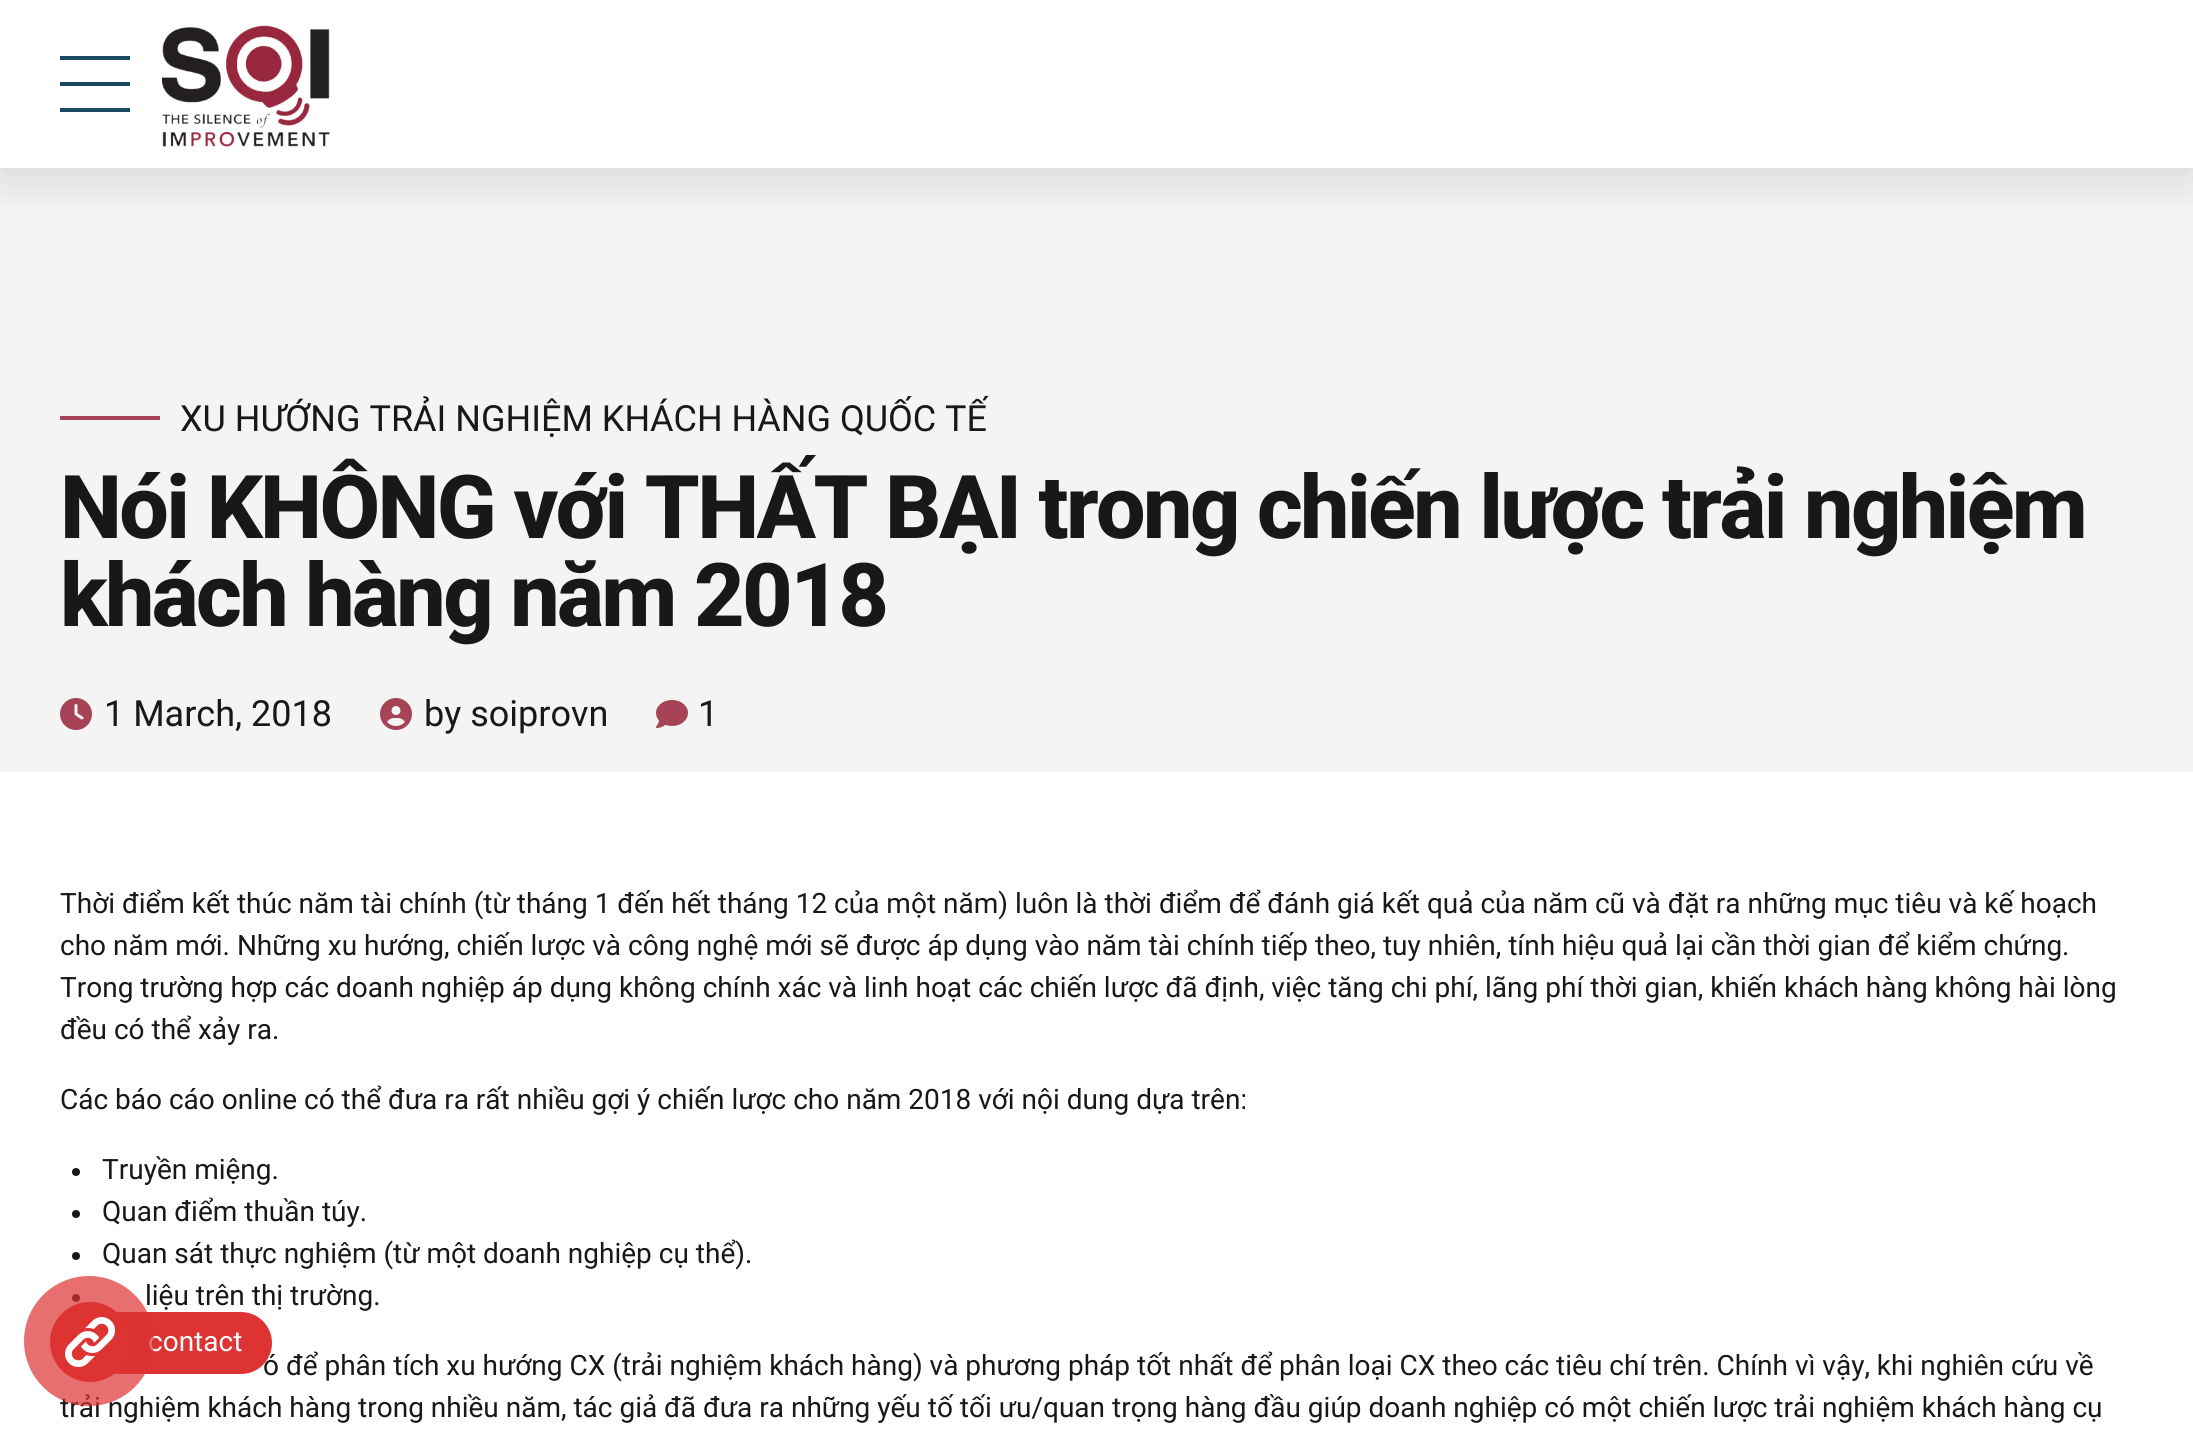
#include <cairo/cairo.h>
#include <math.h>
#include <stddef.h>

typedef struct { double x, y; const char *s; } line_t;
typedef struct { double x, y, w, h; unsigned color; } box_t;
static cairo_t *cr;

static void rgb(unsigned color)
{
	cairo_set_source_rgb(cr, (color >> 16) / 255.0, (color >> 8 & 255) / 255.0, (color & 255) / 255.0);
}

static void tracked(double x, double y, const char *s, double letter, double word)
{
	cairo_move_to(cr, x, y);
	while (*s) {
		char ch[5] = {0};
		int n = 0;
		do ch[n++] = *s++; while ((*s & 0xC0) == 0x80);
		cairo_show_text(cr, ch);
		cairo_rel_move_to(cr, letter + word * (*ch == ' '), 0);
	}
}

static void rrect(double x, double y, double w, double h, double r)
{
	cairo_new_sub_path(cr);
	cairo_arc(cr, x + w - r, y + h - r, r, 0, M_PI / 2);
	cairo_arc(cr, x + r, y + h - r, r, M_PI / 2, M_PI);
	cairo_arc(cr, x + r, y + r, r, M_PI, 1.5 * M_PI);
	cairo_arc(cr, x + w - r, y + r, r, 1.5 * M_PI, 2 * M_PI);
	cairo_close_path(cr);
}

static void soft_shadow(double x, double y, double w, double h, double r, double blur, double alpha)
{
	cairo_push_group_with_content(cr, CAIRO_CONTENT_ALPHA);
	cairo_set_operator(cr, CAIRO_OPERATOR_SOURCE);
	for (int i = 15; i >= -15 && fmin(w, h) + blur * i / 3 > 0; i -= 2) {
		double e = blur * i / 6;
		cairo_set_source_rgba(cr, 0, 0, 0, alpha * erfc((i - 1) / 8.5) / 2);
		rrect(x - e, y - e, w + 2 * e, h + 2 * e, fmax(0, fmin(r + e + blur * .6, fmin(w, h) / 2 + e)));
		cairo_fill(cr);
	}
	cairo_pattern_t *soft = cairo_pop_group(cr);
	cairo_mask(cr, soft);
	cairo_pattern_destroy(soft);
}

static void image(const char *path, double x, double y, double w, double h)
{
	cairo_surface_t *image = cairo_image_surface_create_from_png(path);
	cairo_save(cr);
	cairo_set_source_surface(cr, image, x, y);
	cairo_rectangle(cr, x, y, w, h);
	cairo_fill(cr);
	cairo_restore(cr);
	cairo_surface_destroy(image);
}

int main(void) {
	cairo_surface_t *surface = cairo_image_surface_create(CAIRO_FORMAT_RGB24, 2193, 1432);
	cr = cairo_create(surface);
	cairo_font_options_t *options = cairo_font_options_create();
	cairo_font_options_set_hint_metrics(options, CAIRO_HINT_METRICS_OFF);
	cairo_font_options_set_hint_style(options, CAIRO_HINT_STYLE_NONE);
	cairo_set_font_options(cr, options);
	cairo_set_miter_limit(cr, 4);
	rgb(0xffffff);
	cairo_paint(cr);
	rgb(0xf4f4f4);
	cairo_rectangle(cr, 0, 168, 2193, 604);
	cairo_fill(cr);
	cairo_save(cr);
	cairo_rectangle(cr, 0, 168, 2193, 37);
	cairo_clip(cr);
	rgb(0x000000);
	soft_shadow(0, 4, 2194, 168, 0, 30, 0.15);
	cairo_restore(cr);
	{
		static const box_t items[] = {
			{60, 56, 70, 4, 0x1b4962},
			{60, 82, 70, 4, 0x1b4962},
			{60, 108, 70, 4, 0x1b4962},
		};
		for (size_t i = 0; i < sizeof items / sizeof *items; i++) {
			rgb(items[i].color);
			cairo_rectangle(cr, items[i].x, items[i].y, items[i].w, items[i].h);
			cairo_fill(cr);
		}
	}
	image("img/1.png", 162, 25, 168, 122);
	rgb(0xa64356);
	cairo_rectangle(cr, 60, 416, 100, 4);
	cairo_fill(cr);
	image("img/2.png", 60, 698, 32, 32);
	image("img/3.png", 380, 698, 32, 32);
	image("img/4.png", 656, 700, 32, 28);
	rgb(0x181818);
	cairo_arc(cr, 76, 1172, 4, 0, 2 * M_PI);
	cairo_fill(cr);
	cairo_arc(cr, 76, 1214, 4, 0, 2 * M_PI);
	cairo_fill(cr);
	cairo_arc(cr, 76, 1256, 4, 0, 2 * M_PI);
	cairo_fill(cr);
	cairo_arc(cr, 76, 1298, 4, 0, 2 * M_PI);
	cairo_fill(cr);
	cairo_select_font_face(cr, "Roboto", CAIRO_FONT_SLANT_NORMAL, CAIRO_FONT_WEIGHT_NORMAL);
	cairo_set_font_size(cr, 36);
	cairo_move_to(cr, 180, 431);
	cairo_show_text(cr, "XU HƯỚNG TRẢI NGHIỆM KHÁCH HÀNG QUỐC TẾ");
	cairo_select_font_face(cr, "Roboto ExtraBold", CAIRO_FONT_SLANT_NORMAL, CAIRO_FONT_WEIGHT_NORMAL);
	cairo_set_font_size(cr, 88);
	tracked(60, 538, "Nói KHÔNG với THẤT BẠI trong chiến lược trải nghiệm", -2.65, 0);
	tracked(60, 626, "khách hàng năm 2018", -2.65, 0);
	cairo_select_font_face(cr, "Roboto", CAIRO_FONT_SLANT_NORMAL, CAIRO_FONT_WEIGHT_NORMAL);
	cairo_set_font_size(cr, 36);
	{
		static const line_t items[] = {
			{104, 726, "1 March, 2018"},
			{424, 726, "by soiprovn"},
			{698, 726, "1"},
		};
		for (size_t i = 0; i < sizeof items / sizeof *items; i++) {
			cairo_move_to(cr, items[i].x, items[i].y);
			cairo_show_text(cr, items[i].s);
		}
	}
	cairo_set_font_size(cr, 28);
	{
		static const line_t items[] = {
			{60, 913, "Thời điểm kết thúc năm tài chính (từ tháng 1 đến hết tháng 12 của một năm) luôn là thời điểm để đánh giá kết quả của năm cũ và đặt ra những mục tiêu và kế hoạch"},
			{60, 955, "cho năm mới. Những xu hướng, chiến lược và công nghệ mới sẽ được áp dụng vào năm tài chính tiếp theo, tuy nhiên, tính hiệu quả lại cần thời gian để kiểm chứng."},
			{60, 997, "Trong trường hợp các doanh nghiệp áp dụng không chính xác và linh hoạt các chiến lược đã định, việc tăng chi phí, lãng phí thời gian, khiến khách hàng không hài lòng"},
			{60, 1039, "đều có thể xảy ra."},
			{60, 1109, "Các báo cáo online có thể đưa ra rất nhiều gợi ý chiến lược cho năm 2018 với nội dung dựa trên:"},
			{102, 1179, "Truyền miệng."},
			{102, 1221, "Quan điểm thuần túy."},
			{102, 1263, "Quan sát thực nghiệm (từ một doanh nghiệp cụ thể)."},
			{145, 1305, "liệu trên thị trường."},
			{263, 1375, "ó để phân tích xu hướng CX (trải nghiệm khách hàng) và phương pháp tốt nhất để phân loại CX theo các tiêu chí trên. Chính vì vậy, khi nghiên cứu về"},
			{60, 1417, "trải nghiệm khách hàng trong nhiều năm, tác giả đã đưa ra những yếu tố tối ưu/quan trọng hàng đầu giúp doanh nghiệp có một chiến lược trải nghiệm khách hàng cụ"},
		};
		for (size_t i = 0; i < sizeof items / sizeof *items; i++) {
			cairo_move_to(cr, items[i].x, items[i].y);
			cairo_show_text(cr, items[i].s);
		}
	}
	rgb(0xdd3333);
	rrect(52, 1312, 220, 62, 31);
	cairo_fill(cr);
	rgb(0xffffff);
	cairo_move_to(cr, 148, 1351);
	cairo_show_text(cr, "contact");
	cairo_set_source_rgba(cr, 0.867, 0.2, 0.2, 0.7);
	cairo_new_path(cr);
	cairo_arc(cr, 89, 1341, 65, 0, 2 * M_PI);
	cairo_fill(cr);
	rgb(0xdd3333);
	cairo_arc(cr, 90, 1342, 40, 0, 2 * M_PI);
	cairo_fill(cr);
	image("img/5.png", 65, 1317, 50, 50);
	cairo_surface_write_to_png(surface, "page.png");
	cairo_font_options_destroy(options);
	cairo_destroy(cr);
	cairo_surface_destroy(surface);
	return 0;
}
